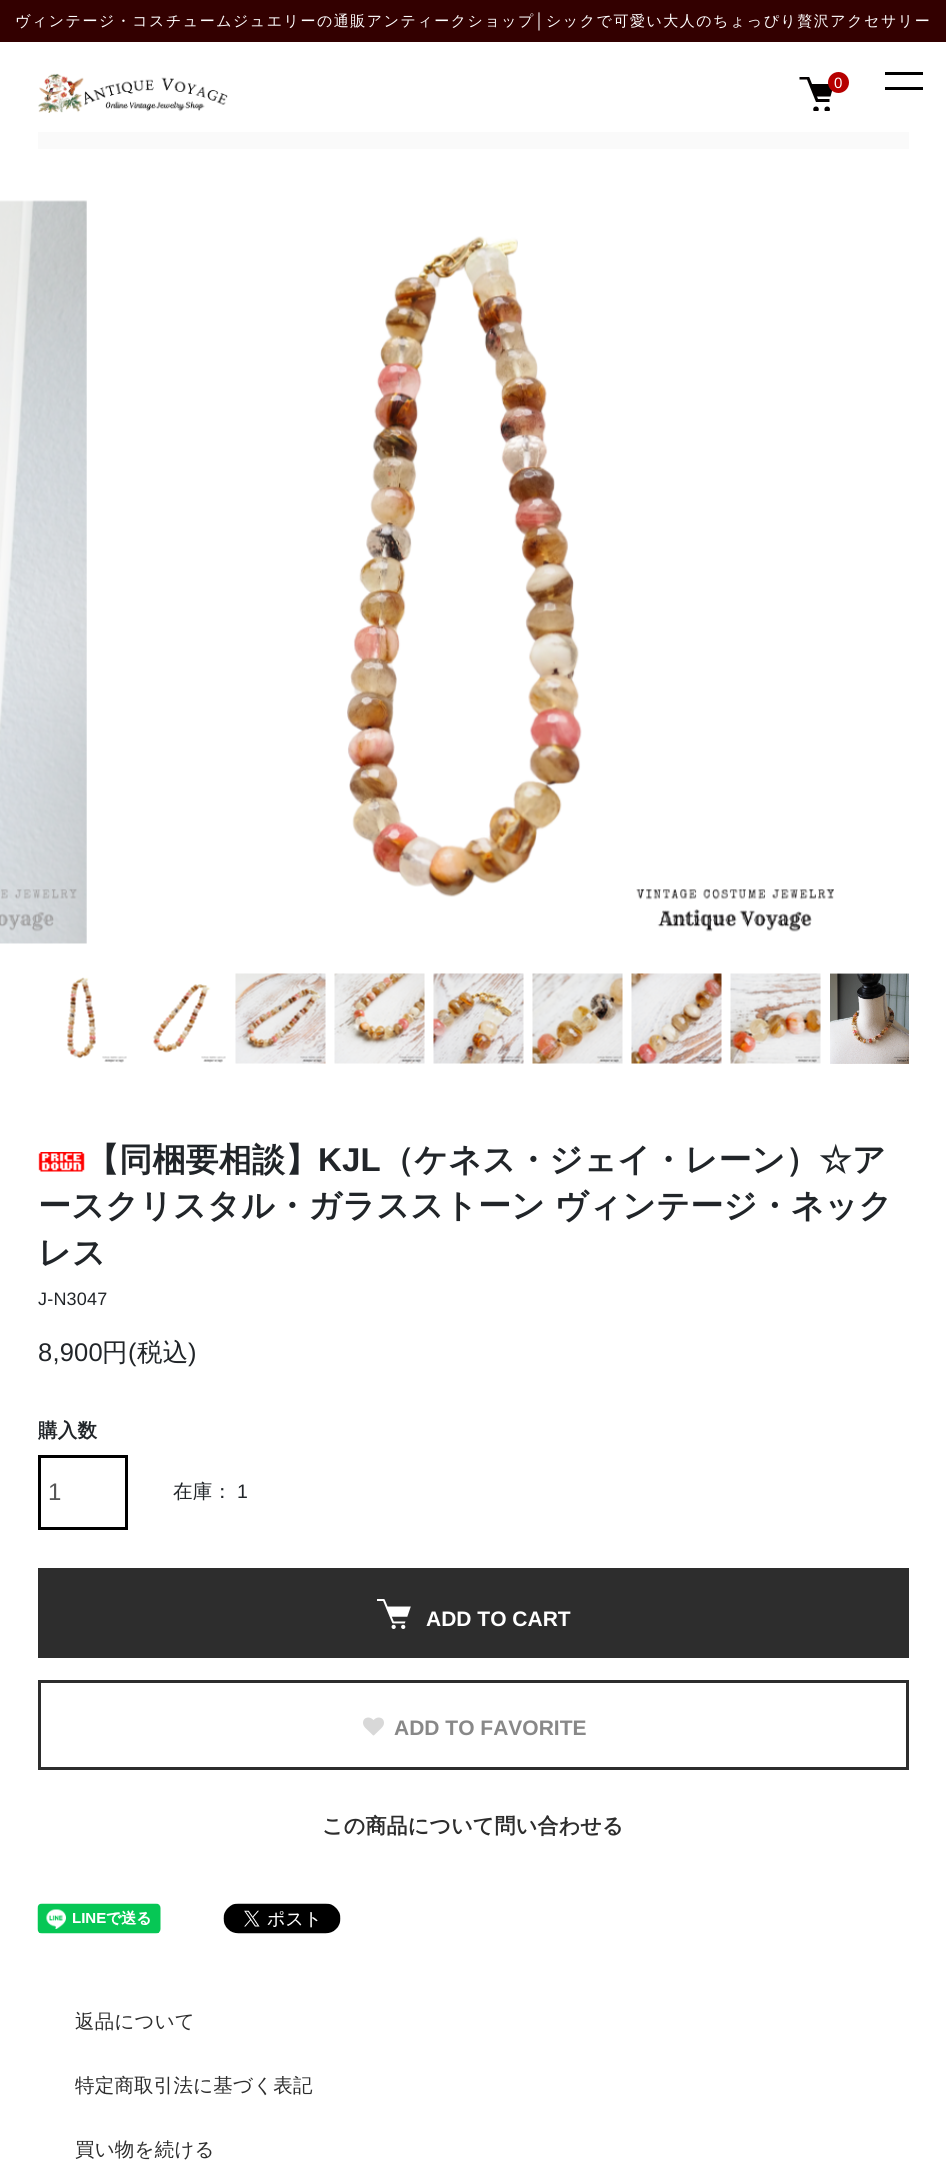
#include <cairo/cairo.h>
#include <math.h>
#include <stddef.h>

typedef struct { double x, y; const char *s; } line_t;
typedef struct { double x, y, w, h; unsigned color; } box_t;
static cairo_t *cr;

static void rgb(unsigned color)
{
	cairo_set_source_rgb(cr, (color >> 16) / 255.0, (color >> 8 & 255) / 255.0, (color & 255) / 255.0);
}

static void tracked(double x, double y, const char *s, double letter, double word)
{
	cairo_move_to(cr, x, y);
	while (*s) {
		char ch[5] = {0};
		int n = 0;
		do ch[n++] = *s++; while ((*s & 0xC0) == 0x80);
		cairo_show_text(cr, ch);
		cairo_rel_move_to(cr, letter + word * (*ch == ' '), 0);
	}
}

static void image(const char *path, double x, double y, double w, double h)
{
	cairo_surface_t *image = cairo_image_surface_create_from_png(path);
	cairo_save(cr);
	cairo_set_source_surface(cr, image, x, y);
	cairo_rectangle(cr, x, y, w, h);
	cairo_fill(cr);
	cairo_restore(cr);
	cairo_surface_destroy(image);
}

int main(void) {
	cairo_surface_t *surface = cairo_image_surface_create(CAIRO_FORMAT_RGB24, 946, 2181);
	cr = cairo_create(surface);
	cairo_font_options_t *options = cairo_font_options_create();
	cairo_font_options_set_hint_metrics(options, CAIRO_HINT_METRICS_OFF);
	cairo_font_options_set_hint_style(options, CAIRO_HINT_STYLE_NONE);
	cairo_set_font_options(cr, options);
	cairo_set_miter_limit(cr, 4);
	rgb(0xffffff);
	cairo_paint(cr);
	rgb(0x330000);
	cairo_rectangle(cr, 0, 0, 946, 42);
	cairo_fill(cr);
	image("img/1.png", 38, 73, 190, 40);
	cairo_save(cr);
	cairo_rectangle(cr, 798, 77, 36, 34);
	cairo_clip(cr);
	rgb(0x030000);
	cairo_arc(cr, 816, 109.3, 2.8, 0, 2 * M_PI);
	cairo_fill(cr);
	cairo_arc(cr, 827.2, 109.3, 2.8, 0, 2 * M_PI);
	cairo_fill(cr);
	cairo_new_path(cr);
	cairo_move_to(cr, 799.5, 78);
	cairo_line_to(cr, 808, 78);
	cairo_line_to(cr, 817, 100.5);
	cairo_line_to(cr, 829.5, 100.5);
	cairo_set_line_width(cr, 3);
	cairo_stroke(cr);
	cairo_restore(cr);
	rgb(0x030000);
	cairo_set_fill_rule(cr, CAIRO_FILL_RULE_EVEN_ODD);
	cairo_new_path(cr);
	cairo_move_to(cr, 809.5, 84);
	cairo_line_to(cr, 834, 84);
	cairo_line_to(cr, 830.5, 96.5);
	cairo_line_to(cr, 814.5, 96.5);
	cairo_fill(cr);
	rgb(0xb60000);
	cairo_arc(cr, 838.5, 82.5, 10.5, 0, 2 * M_PI);
	cairo_fill(cr);
	{
		static const box_t items[] = {
			{885, 72, 38, 3, 0x000000},
			{885, 87, 38, 3, 0x000000},
			{38, 132, 871, 17, 0xfafafa},
		};
		for (size_t i = 0; i < sizeof items / sizeof *items; i++) {
			rgb(items[i].color);
			cairo_rectangle(cr, items[i].x, items[i].y, items[i].w, items[i].h);
			cairo_fill(cr);
		}
	}
	image("img/2.png", 0, 200, 87, 744);
	image("img/3.png", 347, 236, 487, 696);
	image("img/4.png", 67, 977, 60, 86);
	image("img/5.png", 153, 984, 73, 79);
	image("img/6.png", 235, 973, 91, 91);
	image("img/7.png", 334, 973, 91, 91);
	image("img/8.png", 433, 973, 91, 91);
	image("img/9.png", 532, 973, 91, 91);
	image("img/10.png", 631, 973, 91, 91);
	image("img/11.png", 730, 973, 91, 91);
	image("img/12.png", 830, 973, 79, 91);
	image("img/13.png", 38, 1152, 47, 20);
	cairo_rectangle(cr, 39.5, 1456.5, 87, 72);
	rgb(0x000000);
	cairo_set_line_width(cr, 3);
	cairo_stroke(cr);
	rgb(0x2d2d2d);
	cairo_rectangle(cr, 38, 1568, 871, 90);
	cairo_fill(cr);
	image("img/14.png", 377, 1599, 34, 30);
	cairo_rectangle(cr, 39.5, 1681.5, 868, 87);
	cairo_stroke(cr);
	image("img/15.png", 363, 1717, 21, 19);
	image("img/16.png", 37, 1903, 124, 31);
	image("img/17.png", 223, 1903, 118, 31);
	cairo_select_font_face(cr, "WenQuanYi Zen Hei Medium", CAIRO_FONT_SLANT_NORMAL, CAIRO_FONT_WEIGHT_NORMAL);
	cairo_set_font_size(cr, 15);
	rgb(0xffffff);
	tracked(15, 26, "ヴィンテージ・コスチュームジュエリーの通販アンティークショップ", 1.5, 0);
	cairo_select_font_face(cr, "Liberation Sans", CAIRO_FONT_SLANT_NORMAL, CAIRO_FONT_WEIGHT_NORMAL);
	tracked(535, 26, "│", 1.5, 0);
	cairo_select_font_face(cr, "WenQuanYi Zen Hei Medium", CAIRO_FONT_SLANT_NORMAL, CAIRO_FONT_WEIGHT_NORMAL);
	tracked(546, 26, "シックで可愛い大人のちょっぴり贅沢アクセサリー", 1.5, 0);
	cairo_select_font_face(cr, "Liberation Sans", CAIRO_FONT_SLANT_NORMAL, CAIRO_FONT_WEIGHT_NORMAL);
	tracked(834, 88, "0", 0.2, 0);
	cairo_select_font_face(cr, "WenQuanYi Zen Hei", CAIRO_FONT_SLANT_NORMAL, CAIRO_FONT_WEIGHT_BOLD);
	cairo_set_font_size(cr, 33);
	rgb(0x212529);
	tracked(86, 1171, "【同梱要相談】", 0.2, 0);
	cairo_select_font_face(cr, "Liberation Sans", CAIRO_FONT_SLANT_NORMAL, CAIRO_FONT_WEIGHT_BOLD);
	tracked(318, 1171, "KJL", 0.2, 0);
	cairo_select_font_face(cr, "WenQuanYi Zen Hei", CAIRO_FONT_SLANT_NORMAL, CAIRO_FONT_WEIGHT_BOLD);
	tracked(381, 1171, "（ケネス・ジェイ・レーン）☆ア", 0.2, 0);
	tracked(38, 1217, "ースクリスタル・ガラスストーン ヴィンテージ・ネック", 0.2, -1);
	tracked(38, 1264, "レス", 0.2, 0);
	cairo_select_font_face(cr, "Liberation Sans", CAIRO_FONT_SLANT_NORMAL, CAIRO_FONT_WEIGHT_NORMAL);
	cairo_set_font_size(cr, 18);
	tracked(38, 1305, "J-N3047", 0.2, 0);
	cairo_set_font_size(cr, 25.5);
	tracked(38, 1361, "8,900", 0.2, 0);
	cairo_select_font_face(cr, "WenQuanYi Zen Hei Medium", CAIRO_FONT_SLANT_NORMAL, CAIRO_FONT_WEIGHT_NORMAL);
	tracked(102, 1361, "円", 0.2, 0);
	cairo_select_font_face(cr, "Liberation Sans", CAIRO_FONT_SLANT_NORMAL, CAIRO_FONT_WEIGHT_NORMAL);
	tracked(128, 1361, "(", 0.2, 0);
	cairo_select_font_face(cr, "WenQuanYi Zen Hei Medium", CAIRO_FONT_SLANT_NORMAL, CAIRO_FONT_WEIGHT_NORMAL);
	tracked(137, 1361, "税込", 0.2, 0);
	cairo_select_font_face(cr, "Liberation Sans", CAIRO_FONT_SLANT_NORMAL, CAIRO_FONT_WEIGHT_NORMAL);
	tracked(188, 1361, ")", 0.2, 0);
	cairo_select_font_face(cr, "WenQuanYi Zen Hei", CAIRO_FONT_SLANT_NORMAL, CAIRO_FONT_WEIGHT_BOLD);
	cairo_set_font_size(cr, 19.5);
	tracked(38, 1437, "購入数", 0.2, 0);
	cairo_select_font_face(cr, "Liberation Sans", CAIRO_FONT_SLANT_NORMAL, CAIRO_FONT_WEIGHT_NORMAL);
	cairo_set_font_size(cr, 24);
	rgb(0x555555);
	cairo_move_to(cr, 48, 1500);
	cairo_show_text(cr, "1");
	cairo_select_font_face(cr, "WenQuanYi Zen Hei Medium", CAIRO_FONT_SLANT_NORMAL, CAIRO_FONT_WEIGHT_NORMAL);
	cairo_set_font_size(cr, 19.5);
	rgb(0x212529);
	tracked(173, 1498, "在庫：", 0.2, 0);
	cairo_select_font_face(cr, "Liberation Sans", CAIRO_FONT_SLANT_NORMAL, CAIRO_FONT_WEIGHT_NORMAL);
	tracked(237, 1498, "1", 0.2, 0);
	cairo_select_font_face(cr, "Liberation Sans", CAIRO_FONT_SLANT_NORMAL, CAIRO_FONT_WEIGHT_BOLD);
	cairo_set_font_size(cr, 21);
	rgb(0xffffff);
	cairo_move_to(cr, 426, 1626);
	cairo_show_text(cr, "ADD TO CART");
	rgb(0x888888);
	cairo_move_to(cr, 394, 1735);
	cairo_show_text(cr, "ADD TO FAVORITE");
	cairo_select_font_face(cr, "WenQuanYi Zen Hei", CAIRO_FONT_SLANT_NORMAL, CAIRO_FONT_WEIGHT_BOLD);
	rgb(0x2d2d2d);
	tracked(322, 1833, "この商品について問い合わせる", 0.2, 0);
	cairo_select_font_face(cr, "WenQuanYi Zen Hei Medium", CAIRO_FONT_SLANT_NORMAL, CAIRO_FONT_WEIGHT_NORMAL);
	cairo_set_font_size(cr, 19.5);
	{
		static const line_t items[] = {
			{75, 2028, "返品について"},
			{75, 2092, "特定商取引法に基づく表記"},
			{75, 2156, "買い物を続ける"},
		};
		for (size_t i = 0; i < sizeof items / sizeof *items; i++) {
			tracked(items[i].x, items[i].y, items[i].s, 0.2, 0);
		}
	}
	cairo_surface_write_to_png(surface, "page.png");
	cairo_font_options_destroy(options);
	cairo_destroy(cr);
	cairo_surface_destroy(surface);
	return 0;
}
